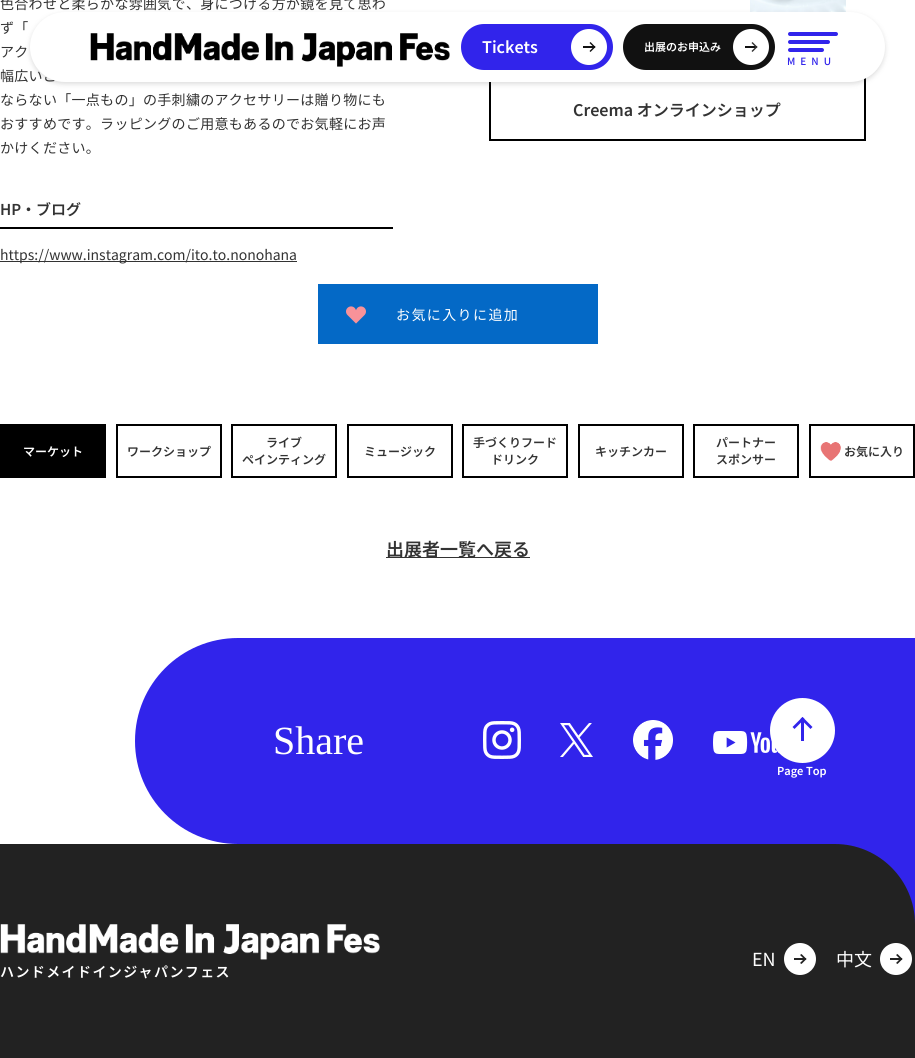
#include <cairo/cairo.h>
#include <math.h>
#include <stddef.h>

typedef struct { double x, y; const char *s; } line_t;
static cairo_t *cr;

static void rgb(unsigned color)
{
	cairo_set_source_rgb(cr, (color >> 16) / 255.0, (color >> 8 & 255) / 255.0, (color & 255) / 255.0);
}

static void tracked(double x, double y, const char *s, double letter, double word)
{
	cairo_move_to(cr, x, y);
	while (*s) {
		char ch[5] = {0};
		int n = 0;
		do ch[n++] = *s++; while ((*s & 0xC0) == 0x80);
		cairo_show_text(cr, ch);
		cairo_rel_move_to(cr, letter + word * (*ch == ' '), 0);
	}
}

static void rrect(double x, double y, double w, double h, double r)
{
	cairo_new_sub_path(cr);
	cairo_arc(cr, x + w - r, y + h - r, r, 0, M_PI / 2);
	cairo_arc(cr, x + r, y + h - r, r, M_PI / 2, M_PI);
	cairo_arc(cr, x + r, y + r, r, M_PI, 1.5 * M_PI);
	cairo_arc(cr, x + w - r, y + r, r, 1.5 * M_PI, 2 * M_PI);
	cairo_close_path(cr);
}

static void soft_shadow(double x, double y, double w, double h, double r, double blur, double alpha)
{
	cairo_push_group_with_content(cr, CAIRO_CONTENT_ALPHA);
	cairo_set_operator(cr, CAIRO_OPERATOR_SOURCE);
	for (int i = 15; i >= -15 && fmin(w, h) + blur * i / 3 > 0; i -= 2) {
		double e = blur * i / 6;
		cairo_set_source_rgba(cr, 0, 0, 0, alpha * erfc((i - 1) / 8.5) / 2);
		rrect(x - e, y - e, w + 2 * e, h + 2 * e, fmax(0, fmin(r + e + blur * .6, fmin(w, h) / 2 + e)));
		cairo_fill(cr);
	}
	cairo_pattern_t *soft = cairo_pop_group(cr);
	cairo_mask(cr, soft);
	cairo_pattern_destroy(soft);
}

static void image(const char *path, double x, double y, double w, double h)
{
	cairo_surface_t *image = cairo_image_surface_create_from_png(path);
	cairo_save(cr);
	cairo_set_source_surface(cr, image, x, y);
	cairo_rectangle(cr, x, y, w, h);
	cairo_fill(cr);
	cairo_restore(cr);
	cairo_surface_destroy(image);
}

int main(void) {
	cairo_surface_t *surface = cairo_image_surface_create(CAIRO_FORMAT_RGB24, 915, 1058);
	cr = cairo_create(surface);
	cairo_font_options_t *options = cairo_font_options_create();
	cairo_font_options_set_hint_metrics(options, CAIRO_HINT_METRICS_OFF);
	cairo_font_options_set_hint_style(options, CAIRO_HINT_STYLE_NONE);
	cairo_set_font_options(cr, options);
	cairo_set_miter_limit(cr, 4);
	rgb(0xffffff);
	cairo_paint(cr);
	rgb(0x000000);
	cairo_rectangle(cr, 0, 227, 393, 2);
	cairo_fill(cr);
	rgb(0x333333);
	cairo_rectangle(cr, 0, 261, 297, 1);
	cairo_fill(cr);
	image("img/1.png", 750, 0, 96, 12);
	cairo_rectangle(cr, 490, 78, 375, 62);
	rgb(0x000000);
	cairo_stroke(cr);
	rgb(0x515151);
	soft_shadow(30, 14, 855, 70, 35, 2.5, 0.2);
	rgb(0x0469c6);
	cairo_rectangle(cr, 318, 284, 280, 60);
	cairo_fill(cr);
	image("img/3.png", 346, 306, 20, 18);
	rgb(0x000000);
	cairo_rectangle(cr, 0, 424, 106, 54);
	cairo_fill(cr);
	cairo_rectangle(cr, 117, 425, 104, 52);
	cairo_stroke(cr);
	cairo_rectangle(cr, 232, 425, 104, 52);
	cairo_stroke(cr);
	cairo_rectangle(cr, 348, 425, 104, 52);
	cairo_stroke(cr);
	cairo_rectangle(cr, 463, 425, 104, 52);
	cairo_stroke(cr);
	cairo_rectangle(cr, 579, 425, 104, 52);
	cairo_stroke(cr);
	cairo_rectangle(cr, 694, 425, 104, 52);
	cairo_stroke(cr);
	cairo_rectangle(cr, 810, 425, 104, 52);
	cairo_stroke(cr);
	image("img/4.png", 820, 442, 21, 19);
	rgb(0x333333);
	cairo_rectangle(cr, 386, 557, 144, 1);
	cairo_fill(cr);
	rgb(0x3124eb);
	cairo_new_path(cr);
	cairo_move_to(cr, 238, 638);
	cairo_line_to(cr, 915, 638);
	cairo_line_to(cr, 915, 844);
	cairo_line_to(cr, 238, 844);
	cairo_curve_to(cr, 181, 844, 135, 798, 135, 741);
	cairo_curve_to(cr, 135, 684, 181, 638, 238, 638);
	cairo_close_path(cr);
	cairo_fill(cr);
	image("img/5.png", 483, 721, 38, 38);
	image("img/6.png", 560, 723, 33, 34);
	image("img/7.png", 633, 720, 40, 40);
	image("img/8.png", 713, 731, 66, 23);
	rgb(0xffffff);
	cairo_arc(cr, 802.5, 730.5, 32.5, 0, 2 * M_PI);
	cairo_fill(cr);
	rgb(0x3124eb);
	cairo_rectangle(cr, 801, 720, 3, 21);
	cairo_fill(cr);
	cairo_new_path(cr);
	cairo_move_to(cr, 792.5, 727);
	cairo_line_to(cr, 802.5, 717);
	cairo_line_to(cr, 804.5, 719);
	cairo_line_to(cr, 794.5, 729);
	cairo_close_path(cr);
	cairo_fill(cr);
	cairo_new_path(cr);
	cairo_move_to(cr, 810.5, 729);
	cairo_line_to(cr, 800.5, 719);
	cairo_line_to(cr, 802.5, 717);
	cairo_line_to(cr, 812.5, 727);
	cairo_close_path(cr);
	cairo_fill(cr);
	rgb(0x222222);
	cairo_rectangle(cr, 0, 844, 915, 214);
	cairo_fill(cr);
	rgb(0x3124eb);
	cairo_rectangle(cr, 836, 844, 79, 80);
	cairo_fill(cr);
	rgb(0x222222);
	cairo_new_path(cr);
	cairo_move_to(cr, 815, 844);
	cairo_line_to(cr, 835, 844);
	cairo_curve_to(cr, 879, 844, 915, 880, 915, 924);
	cairo_line_to(cr, 915, 944);
	cairo_line_to(cr, 815, 944);
	cairo_close_path(cr);
	cairo_fill(cr);
	rgb(0xffffff);
	cairo_arc(cr, 800, 959, 16, 0, 2 * M_PI);
	cairo_fill(cr);
	rgb(0x222222);
	cairo_rectangle(cr, 794, 958, 12, 2);
	cairo_fill(cr);
	cairo_new_path(cr);
	cairo_move_to(cr, 801.5, 954);
	cairo_line_to(cr, 806.5, 959);
	cairo_line_to(cr, 805, 960);
	cairo_line_to(cr, 800, 955);
	cairo_close_path(cr);
	cairo_fill(cr);
	cairo_new_path(cr);
	cairo_move_to(cr, 800, 963);
	cairo_line_to(cr, 805, 958);
	cairo_line_to(cr, 806.5, 959);
	cairo_line_to(cr, 801.5, 964);
	cairo_close_path(cr);
	cairo_fill(cr);
	rgb(0xffffff);
	cairo_arc(cr, 896, 959, 16, 0, 2 * M_PI);
	cairo_fill(cr);
	rgb(0x222222);
	cairo_rectangle(cr, 890, 958, 12, 2);
	cairo_fill(cr);
	cairo_new_path(cr);
	cairo_move_to(cr, 897.5, 954);
	cairo_line_to(cr, 902.5, 959);
	cairo_line_to(cr, 901, 960);
	cairo_line_to(cr, 896, 955);
	cairo_close_path(cr);
	cairo_fill(cr);
	cairo_new_path(cr);
	cairo_move_to(cr, 896, 963);
	cairo_line_to(cr, 901, 958);
	cairo_line_to(cr, 902.5, 959);
	cairo_line_to(cr, 897.5, 964);
	cairo_close_path(cr);
	cairo_fill(cr);
	image("img/9.png", 0, 924, 380, 36);
	cairo_select_font_face(cr, "Noto Sans JP Thin", CAIRO_FONT_SLANT_NORMAL, CAIRO_FONT_WEIGHT_NORMAL);
	cairo_set_font_size(cr, 14);
	rgb(0x333333);
	{
		static const line_t items[] = {
			{0, 9, "色合わせと柔らかな雰囲気で、身につける方が鏡を見て思わ"},
			{0, 33, "ず「"},
			{0, 57, "アク"},
			{0, 81, "幅広いご"},
			{0, 105, "ならない「一点もの」の手刺繍のアクセサリーは贈り物にも"},
			{0, 129, "おすすめです。ラッピングのご用意もあるのでお気軽にお声"},
			{0, 153, "かけください。"},
		};
		for (size_t i = 0; i < sizeof items / sizeof *items; i++) {
			tracked(items[i].x, items[i].y, items[i].s, 0.3, 0);
		}
	}
	cairo_select_font_face(cr, "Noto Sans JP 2 Thin", CAIRO_FONT_SLANT_NORMAL, CAIRO_FONT_WEIGHT_NORMAL);
	cairo_set_font_size(cr, 15);
	cairo_move_to(cr, 0, 215);
	cairo_show_text(cr, "HP・ブログ");
	cairo_select_font_face(cr, "Noto Sans JP Thin", CAIRO_FONT_SLANT_NORMAL, CAIRO_FONT_WEIGHT_NORMAL);
	cairo_set_font_size(cr, 14);
	cairo_move_to(cr, 0, 260);
	cairo_show_text(cr, "https://www.instagram.com/ito.to.nonohana");
	cairo_select_font_face(cr, "Noto Sans JP 2 Thin", CAIRO_FONT_SLANT_NORMAL, CAIRO_FONT_WEIGHT_NORMAL);
	cairo_set_font_size(cr, 16);
	cairo_move_to(cr, 573, 116);
	cairo_show_text(cr, "Creema オンラインショップ");
	rgb(0xffffff);
	rrect(30, 12, 855, 70, 35);
	cairo_fill(cr);
	image("img/2.png", 90, 33, 360, 34);
	rgb(0x3124eb);
	rrect(461, 24, 152, 46, 23);
	cairo_fill(cr);
	rgb(0xffffff);
	cairo_arc(cr, 589, 47, 18, 0, 2 * M_PI);
	cairo_fill(cr);
	cairo_move_to(cr, 482, 53);
	cairo_show_text(cr, "Tickets");
	rgb(0x111111);
	cairo_rectangle(cr, 583, 46, 12, 2);
	cairo_fill(cr);
	cairo_new_path(cr);
	cairo_move_to(cr, 590.5, 42);
	cairo_line_to(cr, 595.5, 47);
	cairo_line_to(cr, 594.5, 48);
	cairo_line_to(cr, 589.5, 43);
	cairo_close_path(cr);
	cairo_fill(cr);
	cairo_new_path(cr);
	cairo_move_to(cr, 589.5, 51);
	cairo_line_to(cr, 594.5, 46);
	cairo_line_to(cr, 595.5, 47);
	cairo_line_to(cr, 590.5, 52);
	cairo_close_path(cr);
	cairo_fill(cr);
	rrect(623, 24, 152, 46, 23);
	cairo_fill(cr);
	rgb(0xffffff);
	cairo_arc(cr, 751, 47, 18, 0, 2 * M_PI);
	cairo_fill(cr);
	cairo_set_font_size(cr, 11);
	cairo_move_to(cr, 644, 51);
	cairo_show_text(cr, "出展のお申込み");
	rgb(0x111111);
	cairo_rectangle(cr, 745, 46, 12, 2);
	cairo_fill(cr);
	rgb(0x333333);
	cairo_new_path(cr);
	cairo_move_to(cr, 752.5, 42);
	cairo_line_to(cr, 757.5, 47);
	cairo_line_to(cr, 756.5, 48);
	cairo_line_to(cr, 751.5, 43);
	cairo_close_path(cr);
	cairo_fill(cr);
	cairo_new_path(cr);
	cairo_move_to(cr, 751.5, 51);
	cairo_line_to(cr, 756.5, 46);
	cairo_line_to(cr, 757.5, 47);
	cairo_line_to(cr, 752.5, 52);
	cairo_close_path(cr);
	cairo_fill(cr);
	rgb(0x3124eb);
	rrect(788, 40, 42, 4, 2);
	cairo_fill(cr);
	rrect(788, 32, 50, 4, 2);
	cairo_fill(cr);
	rrect(788, 48, 36, 4, 2);
	cairo_fill(cr);
	cairo_select_font_face(cr, "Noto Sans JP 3 Thin", CAIRO_FONT_SLANT_NORMAL, CAIRO_FONT_WEIGHT_NORMAL);
	cairo_set_font_size(cr, 10);
	tracked(787, 65, "MENU", 5, 0);
	cairo_select_font_face(cr, "Noto Sans JP Thin", CAIRO_FONT_SLANT_NORMAL, CAIRO_FONT_WEIGHT_NORMAL);
	cairo_set_font_size(cr, 14);
	rgb(0xffffff);
	tracked(396, 320, "お気に入りに追加", 1.4, 0);
	cairo_select_font_face(cr, "Noto Sans JP 2 Thin", CAIRO_FONT_SLANT_NORMAL, CAIRO_FONT_WEIGHT_NORMAL);
	cairo_set_font_size(cr, 12);
	cairo_move_to(cr, 23, 456);
	cairo_show_text(cr, "マーケット");
	rgb(0x333333);
	{
		static const line_t items[] = {
			{127, 456, "ワークショップ"},
			{266, 447, "ライブ"},
			{242, 464, "ペインティング"},
			{364, 456, "ミュージック"},
			{473, 447, "手づくりフード"},
			{491, 464, "ドリンク"},
			{595, 456, "キッチンカー"},
			{716, 447, "パートナー"},
			{716, 464, "スポンサー"},
			{844, 456, "お気に入り"},
		};
		for (size_t i = 0; i < sizeof items / sizeof *items; i++) {
			cairo_move_to(cr, items[i].x, items[i].y);
			cairo_show_text(cr, items[i].s);
		}
	}
	cairo_set_font_size(cr, 18);
	cairo_move_to(cr, 386, 556);
	cairo_show_text(cr, "出展者一覧へ戻る");
	cairo_select_font_face(cr, "Liberation Serif", CAIRO_FONT_SLANT_NORMAL, CAIRO_FONT_WEIGHT_NORMAL);
	cairo_set_font_size(cr, 40);
	rgb(0xffffff);
	cairo_move_to(cr, 273, 754);
	cairo_show_text(cr, "Share");
	cairo_select_font_face(cr, "Noto Sans JP 2 Thin", CAIRO_FONT_SLANT_NORMAL, CAIRO_FONT_WEIGHT_NORMAL);
	cairo_set_font_size(cr, 11);
	cairo_move_to(cr, 777, 775);
	cairo_show_text(cr, "Page Top");
	cairo_select_font_face(cr, "Noto Sans JP Thin", CAIRO_FONT_SLANT_NORMAL, CAIRO_FONT_WEIGHT_NORMAL);
	cairo_set_font_size(cr, 18);
	cairo_move_to(cr, 752, 966);
	cairo_show_text(cr, "EN");
	cairo_move_to(cr, 836, 966);
	cairo_show_text(cr, "中文");
	cairo_select_font_face(cr, "Noto Sans JP 2 Thin", CAIRO_FONT_SLANT_NORMAL, CAIRO_FONT_WEIGHT_NORMAL);
	cairo_set_font_size(cr, 14);
	tracked(0, 977, "ハンドメイドインジャパンフェス", 1.4, 0);
	cairo_surface_write_to_png(surface, "page.png");
	cairo_font_options_destroy(options);
	cairo_destroy(cr);
	cairo_surface_destroy(surface);
	return 0;
}
